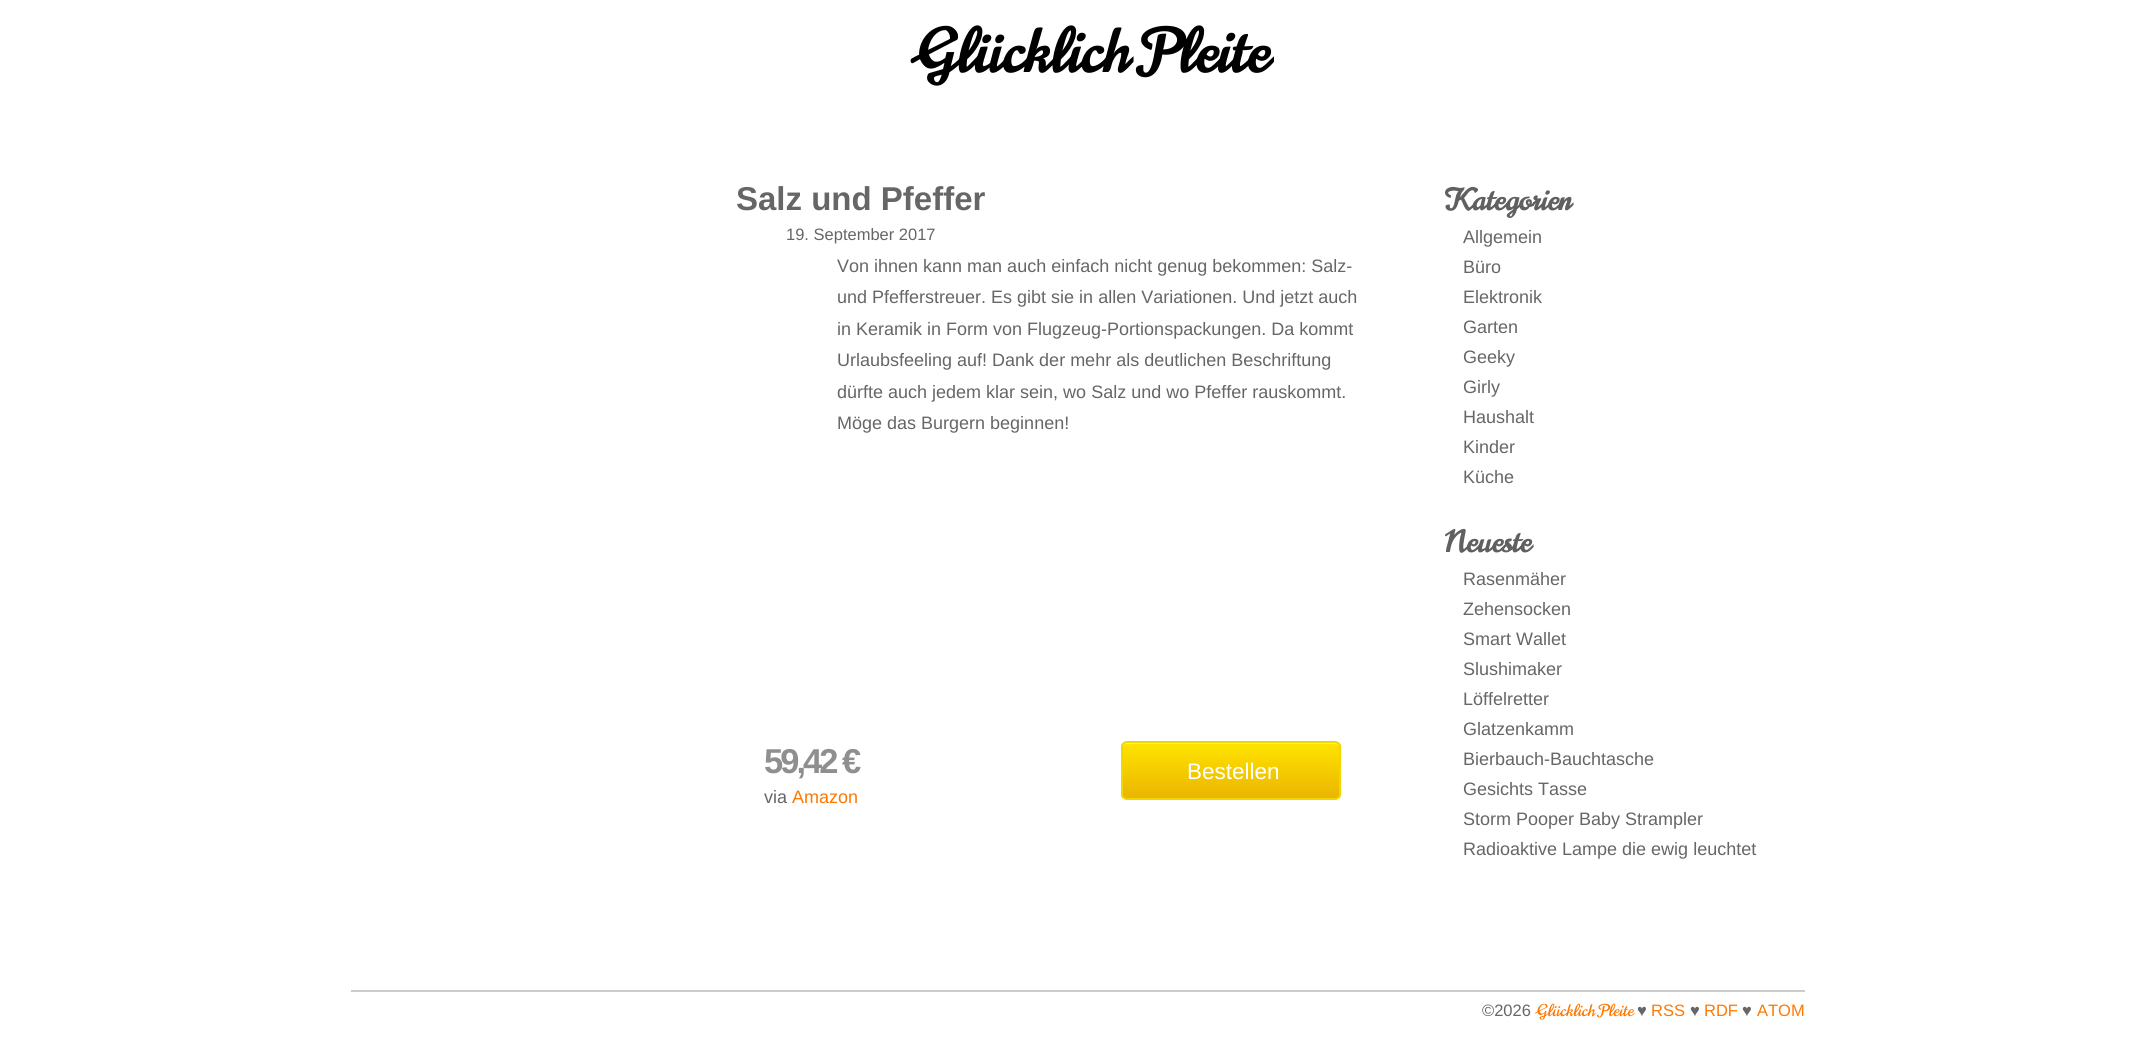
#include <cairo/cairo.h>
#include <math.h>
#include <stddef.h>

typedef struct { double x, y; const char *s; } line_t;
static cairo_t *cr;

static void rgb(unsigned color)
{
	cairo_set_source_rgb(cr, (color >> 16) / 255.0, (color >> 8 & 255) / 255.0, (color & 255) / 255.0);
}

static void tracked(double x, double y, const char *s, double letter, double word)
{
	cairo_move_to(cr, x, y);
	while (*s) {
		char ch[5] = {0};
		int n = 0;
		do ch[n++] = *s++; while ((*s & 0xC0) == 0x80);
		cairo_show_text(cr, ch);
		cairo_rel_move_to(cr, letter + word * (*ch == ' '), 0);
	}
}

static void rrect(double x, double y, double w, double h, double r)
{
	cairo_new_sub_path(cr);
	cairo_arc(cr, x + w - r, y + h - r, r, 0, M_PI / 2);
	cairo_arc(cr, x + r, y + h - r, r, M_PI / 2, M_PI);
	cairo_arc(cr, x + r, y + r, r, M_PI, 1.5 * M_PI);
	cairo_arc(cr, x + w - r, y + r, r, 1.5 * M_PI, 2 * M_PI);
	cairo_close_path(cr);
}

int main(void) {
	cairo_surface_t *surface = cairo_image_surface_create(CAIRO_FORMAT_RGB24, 2155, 1064);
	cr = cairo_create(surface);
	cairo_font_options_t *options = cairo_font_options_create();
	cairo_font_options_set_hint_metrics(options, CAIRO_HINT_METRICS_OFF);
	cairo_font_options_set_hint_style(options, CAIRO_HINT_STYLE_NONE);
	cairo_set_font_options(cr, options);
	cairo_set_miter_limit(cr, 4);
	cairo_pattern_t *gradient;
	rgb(0xffffff);
	cairo_paint(cr);
	cairo_save(cr);
	rrect(1121, 741, 220, 59, 6);
	cairo_clip(cr);
	gradient = cairo_pattern_create_linear(1231, 743, 1231, 798);
	cairo_pattern_add_color_stop_rgba(gradient, 0, 1, 0.894, 0, 1);
	cairo_pattern_add_color_stop_rgba(gradient, 1, 0.918, 0.71, 0, 1);
	cairo_set_source(cr, gradient);
	cairo_pattern_destroy(gradient);
	cairo_rectangle(cr, 1121, 743, 220, 55);
	cairo_fill(cr);
	cairo_restore(cr);
	rgb(0xfff443);
	cairo_new_path(cr);
	cairo_move_to(cr, 1126, 744);
	cairo_line_to(cr, 1335, 744);
	cairo_curve_to(cr, 1337, 744, 1340, 746, 1340, 748);
	cairo_curve_to(cr, 1340, 745, 1338, 743, 1335, 743);
	cairo_line_to(cr, 1127, 743);
	cairo_curve_to(cr, 1124, 743, 1122, 745, 1122, 748);
	cairo_curve_to(cr, 1122, 746, 1124, 744, 1126, 744);
	cairo_close_path(cr);
	cairo_fill(cr);
	rrect(1122, 742, 218, 57, 5);
	rgb(0xf0d700);
	cairo_stroke(cr);
	rgb(0xcccccc);
	cairo_rectangle(cr, 351, 990, 1454, 2);
	cairo_fill(cr);
	cairo_select_font_face(cr, "Norican", CAIRO_FONT_SLANT_NORMAL, CAIRO_FONT_WEIGHT_BOLD);
	cairo_set_font_size(cr, 60);
	rgb(0x000000);
	cairo_move_to(cr, 914, 72);
	cairo_show_text(cr, "Glücklich Pleite");
	cairo_select_font_face(cr, "Liberation Sans", CAIRO_FONT_SLANT_NORMAL, CAIRO_FONT_WEIGHT_BOLD);
	cairo_set_font_size(cr, 33);
	rgb(0x666666);
	cairo_move_to(cr, 736, 210);
	cairo_show_text(cr, "Salz und Pfeffer");
	cairo_select_font_face(cr, "Liberation Sans", CAIRO_FONT_SLANT_NORMAL, CAIRO_FONT_WEIGHT_NORMAL);
	cairo_set_font_size(cr, 16.5);
	cairo_move_to(cr, 786, 240);
	cairo_show_text(cr, "19. September 2017");
	cairo_set_font_size(cr, 18);
	{
		static const line_t items[] = {
			{837, 272, "Von ihnen kann man auch einfach nicht genug bekommen: Salz-"},
			{837, 303, "und Pfefferstreuer. Es gibt sie in allen Variationen. Und jetzt auch"},
			{837, 335, "in Keramik in Form von Flugzeug-Portionspackungen. Da kommt"},
			{837, 366, "Urlaubsfeeling auf! Dank der mehr als deutlichen Beschriftung"},
			{837, 398, "dürfte auch jedem klar sein, wo Salz und wo Pfeffer rauskommt."},
			{837, 429, "Möge das Burgern beginnen!"},
		};
		for (size_t i = 0; i < sizeof items / sizeof *items; i++) {
			cairo_move_to(cr, items[i].x, items[i].y);
			cairo_show_text(cr, items[i].s);
		}
	}
	cairo_select_font_face(cr, "Liberation Sans", CAIRO_FONT_SLANT_NORMAL, CAIRO_FONT_WEIGHT_BOLD);
	cairo_set_font_size(cr, 34.5);
	rgb(0x8f8f8f);
	tracked(764, 773, "59,42 €", -3, 0);
	cairo_select_font_face(cr, "Liberation Sans", CAIRO_FONT_SLANT_NORMAL, CAIRO_FONT_WEIGHT_NORMAL);
	cairo_set_font_size(cr, 22.5);
	rgb(0xffffff);
	cairo_move_to(cr, 1187, 779);
	cairo_show_text(cr, "Bestellen");
	cairo_set_font_size(cr, 18);
	rgb(0x666666);
	cairo_move_to(cr, 764, 803);
	cairo_show_text(cr, "via");
	rgb(0xff7800);
	cairo_move_to(cr, 792, 803);
	cairo_show_text(cr, "Amazon");
	cairo_save(cr);
	cairo_rectangle(cr, 1445, 150, 330, 714);
	cairo_clip(cr);
	cairo_select_font_face(cr, "Norican", CAIRO_FONT_SLANT_NORMAL, CAIRO_FONT_WEIGHT_BOLD);
	cairo_set_font_size(cr, 30);
	rgb(0x606060);
	cairo_move_to(cr, 1445, 210);
	cairo_show_text(cr, "Kategorien");
	cairo_restore(cr);
	rgb(0x666666);
	{
		static const line_t items[] = {
			{1463, 243, "Allgemein"},
			{1463, 273, "Büro"},
			{1463, 303, "Elektronik"},
			{1463, 333, "Garten"},
			{1463, 363, "Geeky"},
			{1463, 393, "Girly"},
			{1463, 423, "Haushalt"},
			{1463, 453, "Kinder"},
			{1463, 483, "Küche"},
		};
		for (size_t i = 0; i < sizeof items / sizeof *items; i++) {
			cairo_move_to(cr, items[i].x, items[i].y);
			cairo_show_text(cr, items[i].s);
		}
	}
	cairo_select_font_face(cr, "Norican", CAIRO_FONT_SLANT_NORMAL, CAIRO_FONT_WEIGHT_BOLD);
	cairo_set_font_size(cr, 30);
	rgb(0x606060);
	cairo_move_to(cr, 1445, 552);
	cairo_show_text(cr, "Neueste");
	cairo_select_font_face(cr, "Liberation Sans", CAIRO_FONT_SLANT_NORMAL, CAIRO_FONT_WEIGHT_NORMAL);
	cairo_set_font_size(cr, 18);
	rgb(0x666666);
	{
		static const line_t items[] = {
			{1463, 585, "Rasenmäher"},
			{1463, 615, "Zehensocken"},
			{1463, 645, "Smart Wallet"},
			{1463, 675, "Slushimaker"},
			{1463, 705, "Löffelretter"},
			{1463, 735, "Glatzenkamm"},
			{1463, 765, "Bierbauch-Bauchtasche"},
			{1463, 795, "Gesichts Tasse"},
			{1463, 825, "Storm Pooper Baby Strampler"},
			{1463, 855, "Radioaktive Lampe die ewig leuchtet"},
		};
		for (size_t i = 0; i < sizeof items / sizeof *items; i++) {
			cairo_move_to(cr, items[i].x, items[i].y);
			cairo_show_text(cr, items[i].s);
		}
	}
	cairo_set_font_size(cr, 16.5);
	cairo_move_to(cr, 1482, 1016);
	cairo_show_text(cr, "©2026");
	cairo_select_font_face(cr, "Norican", CAIRO_FONT_SLANT_NORMAL, CAIRO_FONT_WEIGHT_NORMAL);
	rgb(0xff7800);
	cairo_move_to(cr, 1536, 1016);
	cairo_show_text(cr, "Glücklich Pleite");
	cairo_select_font_face(cr, "Liberation Sans", CAIRO_FONT_SLANT_NORMAL, CAIRO_FONT_WEIGHT_NORMAL);
	rgb(0x666666);
	cairo_move_to(cr, 1637, 1016);
	cairo_show_text(cr, "♥");
	rgb(0xff7800);
	cairo_move_to(cr, 1651, 1016);
	cairo_show_text(cr, "RSS");
	rgb(0x666666);
	cairo_move_to(cr, 1690, 1016);
	cairo_show_text(cr, "♥");
	rgb(0xff7800);
	cairo_move_to(cr, 1704, 1016);
	cairo_show_text(cr, "RDF");
	rgb(0x666666);
	cairo_move_to(cr, 1742, 1016);
	cairo_show_text(cr, "♥");
	rgb(0xff7800);
	cairo_move_to(cr, 1757, 1016);
	cairo_show_text(cr, "ATOM");
	cairo_surface_write_to_png(surface, "page.png");
	cairo_font_options_destroy(options);
	cairo_destroy(cr);
	cairo_surface_destroy(surface);
	return 0;
}
